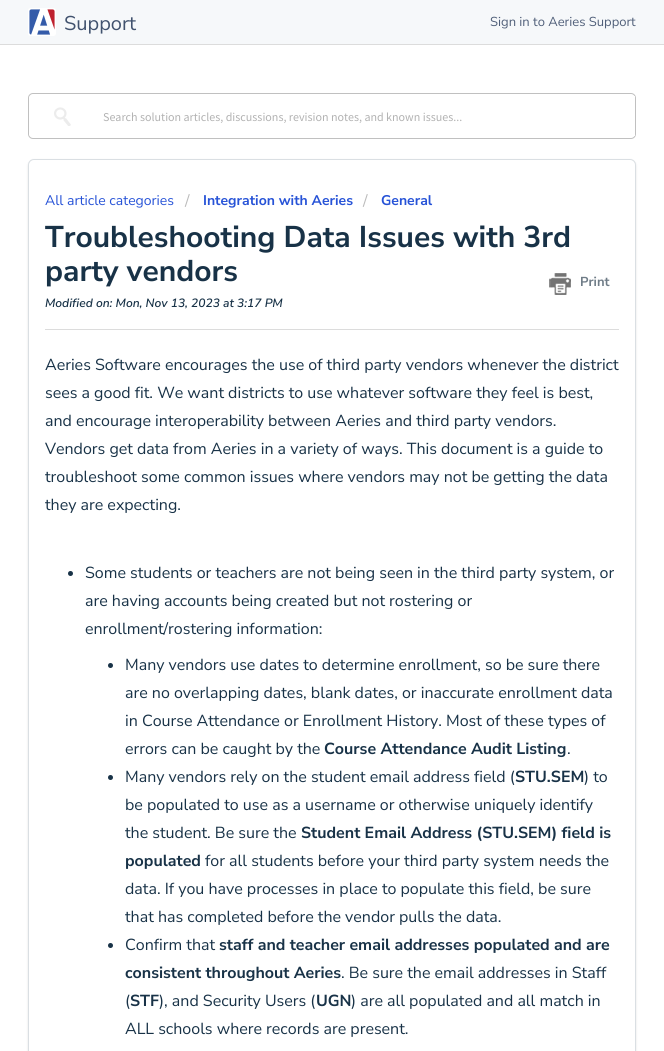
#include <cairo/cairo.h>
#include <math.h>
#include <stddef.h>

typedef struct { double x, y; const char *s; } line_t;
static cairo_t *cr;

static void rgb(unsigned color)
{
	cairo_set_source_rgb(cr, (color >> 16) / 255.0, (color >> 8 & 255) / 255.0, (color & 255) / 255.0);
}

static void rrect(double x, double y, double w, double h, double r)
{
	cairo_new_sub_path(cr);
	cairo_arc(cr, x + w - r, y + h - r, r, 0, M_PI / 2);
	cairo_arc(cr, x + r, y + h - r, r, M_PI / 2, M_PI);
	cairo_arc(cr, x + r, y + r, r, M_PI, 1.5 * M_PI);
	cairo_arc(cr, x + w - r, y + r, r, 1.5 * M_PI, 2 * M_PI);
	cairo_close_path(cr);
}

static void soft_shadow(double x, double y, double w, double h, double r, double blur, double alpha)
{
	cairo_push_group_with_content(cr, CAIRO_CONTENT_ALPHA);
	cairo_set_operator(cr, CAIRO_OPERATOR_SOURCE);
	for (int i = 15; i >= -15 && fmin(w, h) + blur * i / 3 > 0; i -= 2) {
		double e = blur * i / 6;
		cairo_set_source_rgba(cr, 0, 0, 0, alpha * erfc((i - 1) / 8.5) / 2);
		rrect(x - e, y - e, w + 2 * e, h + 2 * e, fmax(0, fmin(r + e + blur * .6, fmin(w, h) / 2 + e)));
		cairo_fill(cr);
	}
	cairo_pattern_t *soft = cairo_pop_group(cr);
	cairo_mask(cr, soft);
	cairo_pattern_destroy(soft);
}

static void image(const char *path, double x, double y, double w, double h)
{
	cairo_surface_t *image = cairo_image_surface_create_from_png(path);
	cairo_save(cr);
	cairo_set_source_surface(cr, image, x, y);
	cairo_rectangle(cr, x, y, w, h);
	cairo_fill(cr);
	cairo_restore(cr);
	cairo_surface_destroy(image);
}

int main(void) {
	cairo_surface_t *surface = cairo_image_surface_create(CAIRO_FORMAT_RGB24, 664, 1051);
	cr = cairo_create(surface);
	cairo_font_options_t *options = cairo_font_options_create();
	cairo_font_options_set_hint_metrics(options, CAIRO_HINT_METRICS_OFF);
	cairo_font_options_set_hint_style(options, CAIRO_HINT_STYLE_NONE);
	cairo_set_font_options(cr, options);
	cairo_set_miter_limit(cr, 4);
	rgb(0xf6f8fa);
	cairo_paint(cr);
	rgb(0xdcdcdc);
	cairo_rectangle(cr, 0, 44, 664, 1);
	cairo_fill(cr);
	image("img/1.png", 28, 8, 28, 28);
	rgb(0xffffff);
	cairo_rectangle(cr, 0, 45, 664, 1006);
	cairo_fill(cr);
	rrect(28.5, 93.5, 607, 45, 4.5);
	rgb(0xc0c0c0);
	cairo_set_line_width(cr, 1);
	cairo_stroke(cr);
	rgb(0xffffff);
	rrect(29, 96, 61, 40, 2);
	cairo_fill(cr);
	image("img/2.png", 54, 107, 17, 19);
	cairo_new_path(cr);
	cairo_move_to(cr, 94, 96);
	cairo_line_to(cr, 635, 96);
	cairo_line_to(cr, 635, 136);
	cairo_line_to(cr, 94, 136);
	cairo_curve_to(cr, 92, 136, 90, 134, 90, 132);
	cairo_line_to(cr, 90, 100);
	cairo_curve_to(cr, 90, 98, 92, 96, 94, 96);
	cairo_close_path(cr);
	cairo_fill(cr);
	rgb(0x3f3f44);
	soft_shadow(28, 160, 608, 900, 6, 1, 0.15);
	rgb(0xffffff);
	rrect(28.5, 159.5, 607, 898, 5.5);
	cairo_fill_preserve(cr);
	rgb(0xdadfe3);
	cairo_stroke(cr);
	image("img/3.png", 549, 273, 22, 22);
	rgb(0xdcdcdc);
	cairo_rectangle(cr, 45, 329, 574, 1);
	cairo_fill(cr);
	rgb(0x183247);
	cairo_arc(cr, 70.5, 573.5, 2.5, 0, 2 * M_PI);
	cairo_fill(cr);
	cairo_arc(cr, 110.5, 665.5, 2.5, 0, 2 * M_PI);
	cairo_fill(cr);
	cairo_arc(cr, 110.5, 777.5, 2.5, 0, 2 * M_PI);
	cairo_fill(cr);
	cairo_arc(cr, 110.5, 945.5, 2.5, 0, 2 * M_PI);
	cairo_fill(cr);
	cairo_select_font_face(cr, "Nunito Sans", CAIRO_FONT_SLANT_NORMAL, CAIRO_FONT_WEIGHT_NORMAL);
	cairo_set_font_size(cr, 20);
	rgb(0x41526e);
	cairo_move_to(cr, 64, 30);
	cairo_show_text(cr, "Support");
	cairo_set_font_size(cr, 13);
	rgb(0x505f79);
	cairo_move_to(cr, 490, 26);
	cairo_show_text(cr, "Sign in to Aeries Support");
	cairo_select_font_face(cr, "Source Sans Pro", CAIRO_FONT_SLANT_NORMAL, CAIRO_FONT_WEIGHT_NORMAL);
	cairo_set_font_size(cr, 12);
	rgb(0xb2b2b2);
	cairo_move_to(cr, 103, 121);
	cairo_show_text(cr, "Search solution articles, discussions, revision notes, and known issues...");
	cairo_select_font_face(cr, "Nunito Sans", CAIRO_FONT_SLANT_NORMAL, CAIRO_FONT_WEIGHT_NORMAL);
	cairo_set_font_size(cr, 14);
	rgb(0x2753d7);
	cairo_move_to(cr, 45, 205);
	cairo_show_text(cr, "All article categories");
	cairo_set_font_size(cr, 16);
	rgb(0xbbbbbb);
	cairo_move_to(cr, 185, 206);
	cairo_show_text(cr, "/");
	cairo_select_font_face(cr, "Nunito Sans", CAIRO_FONT_SLANT_NORMAL, CAIRO_FONT_WEIGHT_BOLD);
	cairo_set_font_size(cr, 14);
	rgb(0x2753d7);
	cairo_move_to(cr, 203, 205);
	cairo_show_text(cr, "Integration with Aeries");
	cairo_select_font_face(cr, "Nunito Sans", CAIRO_FONT_SLANT_NORMAL, CAIRO_FONT_WEIGHT_NORMAL);
	cairo_set_font_size(cr, 16);
	rgb(0xbbbbbb);
	cairo_move_to(cr, 363, 206);
	cairo_show_text(cr, "/");
	cairo_select_font_face(cr, "Nunito Sans", CAIRO_FONT_SLANT_NORMAL, CAIRO_FONT_WEIGHT_BOLD);
	cairo_set_font_size(cr, 14);
	rgb(0x2753d7);
	cairo_move_to(cr, 381, 205);
	cairo_show_text(cr, "General");
	cairo_set_font_size(cr, 30);
	rgb(0x183247);
	cairo_move_to(cr, 45, 247);
	cairo_show_text(cr, "Troubleshooting Data Issues with 3rd");
	cairo_move_to(cr, 45, 281);
	cairo_show_text(cr, "party vendors");
	cairo_set_font_size(cr, 13);
	rgb(0x6f7c87);
	cairo_move_to(cr, 580, 286);
	cairo_show_text(cr, "Print");
	cairo_select_font_face(cr, "Nunito Sans SemiBold", CAIRO_FONT_SLANT_ITALIC, CAIRO_FONT_WEIGHT_NORMAL);
	cairo_set_font_size(cr, 12);
	rgb(0x183247);
	cairo_move_to(cr, 45, 307);
	cairo_show_text(cr, "Modified on: Mon, Nov 13, 2023 at 3:17 PM");
	cairo_select_font_face(cr, "Nunito Sans", CAIRO_FONT_SLANT_NORMAL, CAIRO_FONT_WEIGHT_NORMAL);
	cairo_set_font_size(cr, 16);
	{
		static const line_t items[] = {
			{45, 370, "Aeries Software encourages the use of third party vendors whenever the district"},
			{45, 398, "sees a good fit. We want districts to use whatever software they feel is best,"},
			{45, 426, "and encourage interoperability between Aeries and third party vendors."},
			{45, 454, "Vendors get data from Aeries in a variety of ways. This document is a guide to"},
			{45, 482, "troubleshoot some common issues where vendors may not be getting the data"},
			{45, 510, "they are expecting."},
			{85, 578, "Some students or teachers are not being seen in the third party system, or"},
			{85, 606, "are having accounts being created but not rostering or"},
			{85, 634, "enrollment/rostering information:"},
			{125, 670, "Many vendors use dates to determine enrollment, so be sure there"},
			{125, 698, "are no overlapping dates, blank dates, or inaccurate enrollment data"},
			{125, 726, "in Course Attendance or Enrollment History. Most of these types of"},
			{125, 754, "errors can be caught by the"},
		};
		for (size_t i = 0; i < sizeof items / sizeof *items; i++) {
			cairo_move_to(cr, items[i].x, items[i].y);
			cairo_show_text(cr, items[i].s);
		}
	}
	cairo_select_font_face(cr, "Nunito Sans", CAIRO_FONT_SLANT_NORMAL, CAIRO_FONT_WEIGHT_BOLD);
	cairo_move_to(cr, 324, 754);
	cairo_show_text(cr, "Course Attendance Audit Listing");
	cairo_select_font_face(cr, "Nunito Sans", CAIRO_FONT_SLANT_NORMAL, CAIRO_FONT_WEIGHT_NORMAL);
	cairo_move_to(cr, 567, 754);
	cairo_show_text(cr, ".");
	cairo_move_to(cr, 125, 782);
	cairo_show_text(cr, "Many vendors rely on the student email address field (");
	cairo_select_font_face(cr, "Nunito Sans", CAIRO_FONT_SLANT_NORMAL, CAIRO_FONT_WEIGHT_BOLD);
	cairo_move_to(cr, 515, 782);
	cairo_show_text(cr, "STU.SEM");
	cairo_select_font_face(cr, "Nunito Sans", CAIRO_FONT_SLANT_NORMAL, CAIRO_FONT_WEIGHT_NORMAL);
	{
		static const line_t items[] = {
			{584, 782, ") to"},
			{125, 810, "be populated to use as a username or otherwise uniquely identify"},
			{125, 838, "the student. Be sure the"},
		};
		for (size_t i = 0; i < sizeof items / sizeof *items; i++) {
			cairo_move_to(cr, items[i].x, items[i].y);
			cairo_show_text(cr, items[i].s);
		}
	}
	cairo_select_font_face(cr, "Nunito Sans", CAIRO_FONT_SLANT_NORMAL, CAIRO_FONT_WEIGHT_BOLD);
	cairo_move_to(cr, 301, 838);
	cairo_show_text(cr, "Student Email Address (STU.SEM) field is");
	cairo_move_to(cr, 125, 866);
	cairo_show_text(cr, "populated");
	cairo_select_font_face(cr, "Nunito Sans", CAIRO_FONT_SLANT_NORMAL, CAIRO_FONT_WEIGHT_NORMAL);
	{
		static const line_t items[] = {
			{205, 866, "for all students before your third party system needs the"},
			{125, 894, "data. If you have processes in place to populate this field, be sure"},
			{125, 922, "that has completed before the vendor pulls the data."},
			{125, 950, "Confirm that"},
		};
		for (size_t i = 0; i < sizeof items / sizeof *items; i++) {
			cairo_move_to(cr, items[i].x, items[i].y);
			cairo_show_text(cr, items[i].s);
		}
	}
	cairo_select_font_face(cr, "Nunito Sans", CAIRO_FONT_SLANT_NORMAL, CAIRO_FONT_WEIGHT_BOLD);
	cairo_move_to(cr, 219, 950);
	cairo_show_text(cr, "staff and teacher email addresses populated and are");
	cairo_move_to(cr, 125, 978);
	cairo_show_text(cr, "consistent throughout Aeries");
	cairo_select_font_face(cr, "Nunito Sans", CAIRO_FONT_SLANT_NORMAL, CAIRO_FONT_WEIGHT_NORMAL);
	cairo_move_to(cr, 341, 978);
	cairo_show_text(cr, ". Be sure the email addresses in Staff");
	cairo_move_to(cr, 125, 1006);
	cairo_show_text(cr, "(");
	cairo_select_font_face(cr, "Nunito Sans", CAIRO_FONT_SLANT_NORMAL, CAIRO_FONT_WEIGHT_BOLD);
	cairo_move_to(cr, 130, 1006);
	cairo_show_text(cr, "STF");
	cairo_select_font_face(cr, "Nunito Sans", CAIRO_FONT_SLANT_NORMAL, CAIRO_FONT_WEIGHT_NORMAL);
	cairo_move_to(cr, 159, 1006);
	cairo_show_text(cr, "), and Security Users (");
	cairo_select_font_face(cr, "Nunito Sans", CAIRO_FONT_SLANT_NORMAL, CAIRO_FONT_WEIGHT_BOLD);
	cairo_move_to(cr, 316, 1006);
	cairo_show_text(cr, "UGN");
	cairo_select_font_face(cr, "Nunito Sans", CAIRO_FONT_SLANT_NORMAL, CAIRO_FONT_WEIGHT_NORMAL);
	cairo_move_to(cr, 351, 1006);
	cairo_show_text(cr, ") are all populated and all match in");
	cairo_move_to(cr, 125, 1034);
	cairo_show_text(cr, "ALL schools where records are present.");
	cairo_surface_write_to_png(surface, "page.png");
	cairo_font_options_destroy(options);
	cairo_destroy(cr);
	cairo_surface_destroy(surface);
	return 0;
}
